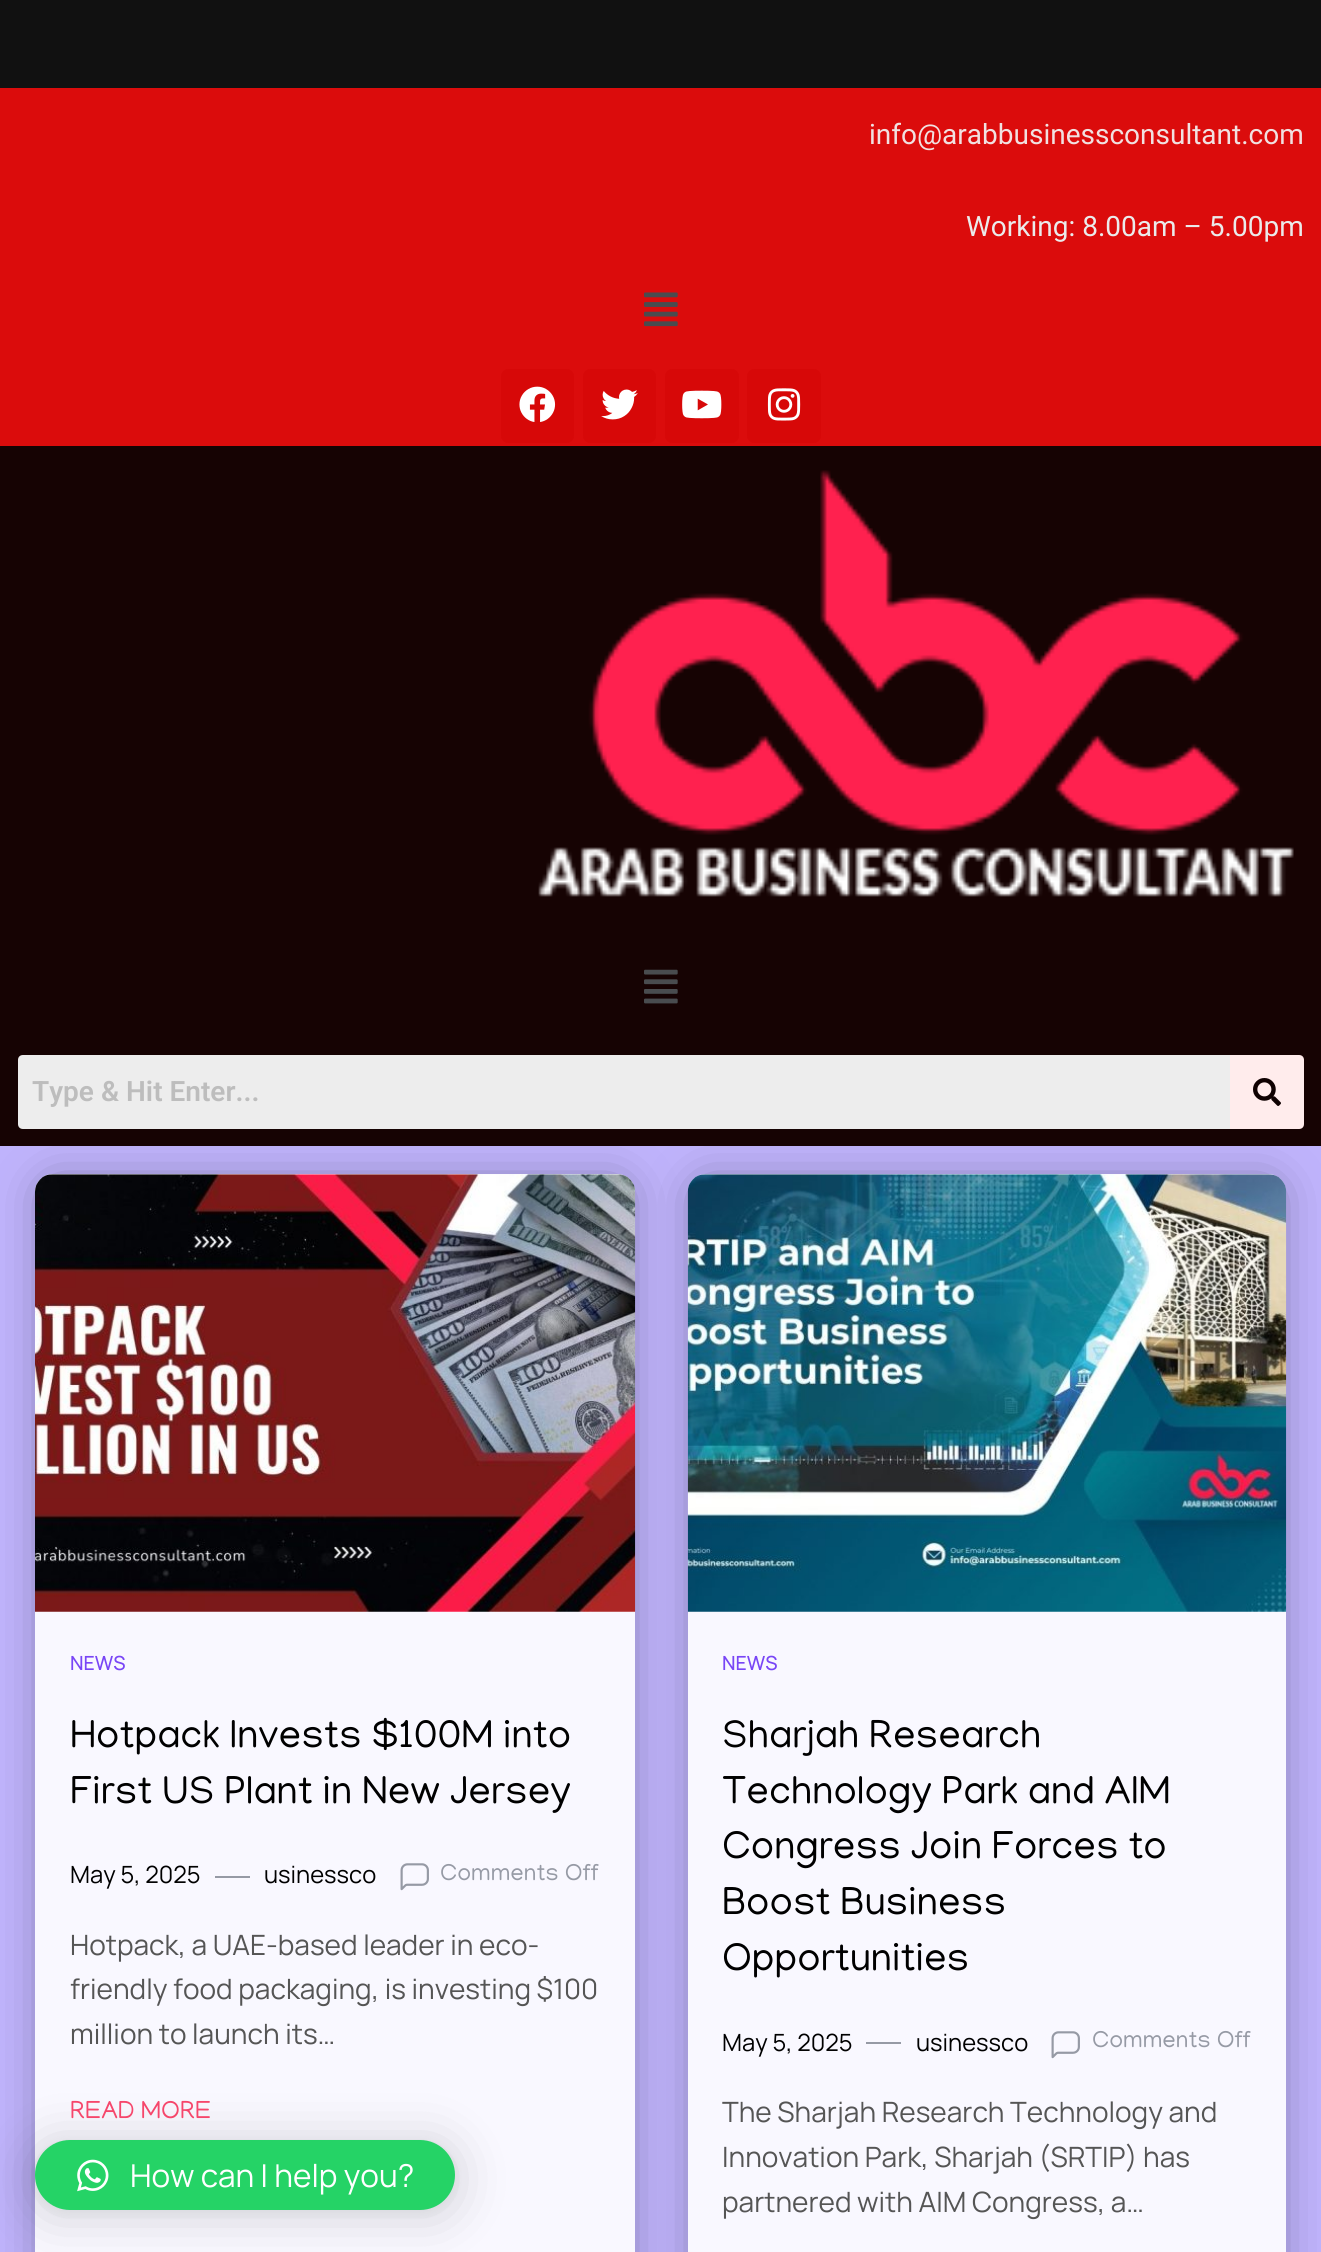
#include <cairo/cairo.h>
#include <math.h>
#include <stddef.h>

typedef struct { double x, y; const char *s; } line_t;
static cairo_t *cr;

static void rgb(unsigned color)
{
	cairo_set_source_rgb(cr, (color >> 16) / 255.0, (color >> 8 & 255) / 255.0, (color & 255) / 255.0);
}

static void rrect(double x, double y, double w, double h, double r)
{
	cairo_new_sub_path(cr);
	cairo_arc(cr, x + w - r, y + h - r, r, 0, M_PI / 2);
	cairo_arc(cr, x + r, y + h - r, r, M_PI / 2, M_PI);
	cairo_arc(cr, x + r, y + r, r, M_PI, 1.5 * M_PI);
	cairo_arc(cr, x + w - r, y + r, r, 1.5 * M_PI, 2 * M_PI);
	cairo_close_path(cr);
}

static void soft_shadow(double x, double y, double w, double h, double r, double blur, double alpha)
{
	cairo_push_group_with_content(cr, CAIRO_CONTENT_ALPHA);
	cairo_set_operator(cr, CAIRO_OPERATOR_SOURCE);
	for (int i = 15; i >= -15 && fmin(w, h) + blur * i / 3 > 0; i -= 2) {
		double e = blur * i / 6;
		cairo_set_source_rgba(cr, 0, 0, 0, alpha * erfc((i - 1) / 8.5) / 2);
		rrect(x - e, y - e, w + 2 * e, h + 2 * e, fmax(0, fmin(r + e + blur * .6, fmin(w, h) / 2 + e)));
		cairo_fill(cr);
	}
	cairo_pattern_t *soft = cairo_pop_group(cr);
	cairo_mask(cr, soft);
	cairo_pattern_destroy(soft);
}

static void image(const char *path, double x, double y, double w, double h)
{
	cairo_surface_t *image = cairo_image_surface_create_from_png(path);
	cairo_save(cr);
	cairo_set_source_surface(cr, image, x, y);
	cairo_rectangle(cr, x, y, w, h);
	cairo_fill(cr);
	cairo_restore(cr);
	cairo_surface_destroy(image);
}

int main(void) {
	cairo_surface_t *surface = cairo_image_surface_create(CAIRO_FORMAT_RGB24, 1321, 2252);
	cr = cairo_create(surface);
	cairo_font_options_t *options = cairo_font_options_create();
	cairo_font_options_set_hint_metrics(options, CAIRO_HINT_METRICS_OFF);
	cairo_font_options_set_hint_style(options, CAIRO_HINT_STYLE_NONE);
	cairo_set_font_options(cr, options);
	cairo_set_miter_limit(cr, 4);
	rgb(0xbfb3fc);
	cairo_paint(cr);
	rgb(0x111111);
	cairo_rectangle(cr, 0, 0, 1321, 88);
	cairo_fill(cr);
	rgb(0xdb0c0c);
	cairo_rectangle(cr, 0, 88, 1321, 358);
	cairo_fill(cr);
	image("img/1.png", 644, 292, 34, 35);
	rgb(0xd70808);
	rrect(501, 369, 73, 74, 7);
	cairo_fill(cr);
	image("img/2.png", 519, 386, 37, 36);
	rrect(583, 369, 73, 74, 7);
	cairo_fill(cr);
	image("img/3.png", 601, 389, 37, 31);
	rrect(665, 369, 74, 74, 7);
	cairo_fill(cr);
	image("img/4.png", 682, 390, 40, 29);
	rrect(747, 369, 74, 74, 7);
	cairo_fill(cr);
	image("img/5.png", 767, 388, 34, 33);
	cairo_save(cr);
	cairo_set_fill_rule(cr, CAIRO_FILL_RULE_EVEN_ODD);
	cairo_new_path(cr);
	cairo_move_to(cr, 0, 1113);
	cairo_line_to(cr, 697, 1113);
	cairo_line_to(cr, 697, 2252);
	cairo_line_to(cr, 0, 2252);
	cairo_close_path(cr);
	cairo_move_to(cr, 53, 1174);
	cairo_line_to(cr, 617, 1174);
	cairo_curve_to(cr, 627, 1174, 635, 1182, 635, 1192);
	cairo_line_to(cr, 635, 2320);
	cairo_curve_to(cr, 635, 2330, 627, 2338, 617, 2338);
	cairo_line_to(cr, 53, 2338);
	cairo_curve_to(cr, 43, 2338, 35, 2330, 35, 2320);
	cairo_line_to(cr, 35, 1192);
	cairo_curve_to(cr, 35, 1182, 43, 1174, 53, 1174);
	cairo_close_path(cr);
	cairo_clip(cr);
	rgb(0x000000);
	soft_shadow(53, 1192, 565, 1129, 0, 26, 0.5);
	cairo_restore(cr);
	cairo_set_source_rgba(cr, 1, 1, 1, 0.9);
	rrect(35, 1174, 600, 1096, 18);
	cairo_fill(cr);
	image("img/9.png", 35, 1174, 601, 438);
	cairo_save(cr);
	cairo_set_fill_rule(cr, CAIRO_FILL_RULE_EVEN_ODD);
	cairo_new_path(cr);
	cairo_move_to(cr, 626, 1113);
	cairo_line_to(cr, 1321, 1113);
	cairo_line_to(cr, 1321, 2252);
	cairo_line_to(cr, 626, 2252);
	cairo_close_path(cr);
	cairo_move_to(cr, 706, 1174);
	cairo_line_to(cr, 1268, 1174);
	cairo_curve_to(cr, 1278, 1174, 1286, 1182, 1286, 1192);
	cairo_line_to(cr, 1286, 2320);
	cairo_curve_to(cr, 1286, 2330, 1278, 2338, 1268, 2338);
	cairo_line_to(cr, 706, 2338);
	cairo_curve_to(cr, 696, 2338, 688, 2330, 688, 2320);
	cairo_line_to(cr, 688, 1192);
	cairo_curve_to(cr, 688, 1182, 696, 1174, 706, 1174);
	cairo_close_path(cr);
	cairo_clip(cr);
	rgb(0x000000);
	soft_shadow(705, 1192, 564, 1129, 0, 26, 0.5);
	cairo_restore(cr);
	rgb(0x160303);
	cairo_rectangle(cr, 0, 446, 1321, 700);
	cairo_fill(cr);
	image("img/6.png", 538, 470, 756, 427);
	image("img/7.png", 644, 969, 34, 35);
	rgb(0xededed);
	cairo_new_path(cr);
	cairo_move_to(cr, 23, 1055);
	cairo_line_to(cr, 1230, 1055);
	cairo_line_to(cr, 1230, 1129);
	cairo_line_to(cr, 23, 1129);
	cairo_curve_to(cr, 20, 1129, 18, 1127, 18, 1124);
	cairo_line_to(cr, 18, 1060);
	cairo_curve_to(cr, 18, 1057, 20, 1055, 23, 1055);
	cairo_close_path(cr);
	cairo_fill(cr);
	rgb(0xffecec);
	cairo_new_path(cr);
	cairo_move_to(cr, 1230, 1055);
	cairo_line_to(cr, 1299, 1055);
	cairo_curve_to(cr, 1302, 1055, 1304, 1057, 1304, 1060);
	cairo_line_to(cr, 1304, 1124);
	cairo_curve_to(cr, 1304, 1127, 1302, 1129, 1299, 1129);
	cairo_line_to(cr, 1230, 1129);
	cairo_close_path(cr);
	cairo_fill(cr);
	image("img/8.png", 1253, 1078, 28, 28);
	rgb(0x969aa5);
	cairo_rectangle(cr, 215, 1876, 35, 2);
	cairo_fill(cr);
	image("img/10.png", 400, 1863, 29, 28);
	cairo_set_source_rgba(cr, 1, 1, 1, 0.9);
	rrect(688, 1174, 598, 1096, 18);
	cairo_fill(cr);
	image("img/11.png", 687, 1174, 600, 438);
	rgb(0x969aa5);
	cairo_rectangle(cr, 866, 2042, 35, 2);
	cairo_fill(cr);
	image("img/10.png", 1051, 2031, 29, 28);
	rgb(0x000000);
	soft_shadow(35, 2144, 420, 70, 35, 28, 0.16);
	soft_shadow(35, 2142, 420, 70, 35, 5, 0.06);
	rgb(0x25d366);
	rrect(35, 2140, 420, 70, 35);
	cairo_fill(cr);
	image("img/12.png", 77, 2159, 32, 33);
	cairo_select_font_face(cr, "Roboto", CAIRO_FONT_SLANT_NORMAL, CAIRO_FONT_WEIGHT_NORMAL);
	cairo_set_font_size(cr, 28);
	rgb(0xf1e1e1);
	cairo_move_to(cr, 869, 144);
	cairo_show_text(cr, "info@arabbusinessconsultant.com");
	rgb(0xebebeb);
	cairo_move_to(cr, 966, 236);
	cairo_show_text(cr, "Working: 8.00am – 5.00pm");
	cairo_select_font_face(cr, "Roboto SemiBold", CAIRO_FONT_SLANT_NORMAL, CAIRO_FONT_WEIGHT_NORMAL);
	rgb(0xbdbdbd);
	cairo_move_to(cr, 32, 1101);
	cairo_show_text(cr, "Type & Hit Enter...");
	cairo_select_font_face(cr, "Manrope Medium", CAIRO_FONT_SLANT_NORMAL, CAIRO_FONT_WEIGHT_NORMAL);
	cairo_set_font_size(cr, 19.5);
	rgb(0x7946f6);
	cairo_move_to(cr, 70, 1670);
	cairo_show_text(cr, "NEWS");
	cairo_select_font_face(cr, "Manjari", CAIRO_FONT_SLANT_NORMAL, CAIRO_FONT_WEIGHT_NORMAL);
	cairo_set_font_size(cr, 39.9);
	rgb(0x000000);
	cairo_move_to(cr, 70, 1747);
	cairo_show_text(cr, "Hotpack Invests $100M into");
	cairo_move_to(cr, 70, 1803);
	cairo_show_text(cr, "First US Plant in New Jersey");
	cairo_select_font_face(cr, "Manrope", CAIRO_FONT_SLANT_NORMAL, CAIRO_FONT_WEIGHT_NORMAL);
	cairo_set_font_size(cr, 23.75);
	cairo_move_to(cr, 70, 1883);
	cairo_show_text(cr, "May 5, 2025");
	cairo_move_to(cr, 264, 1883);
	cairo_show_text(cr, "usinessco");
	cairo_select_font_face(cr, "Manjari", CAIRO_FONT_SLANT_NORMAL, CAIRO_FONT_WEIGHT_NORMAL);
	rgb(0x969aa5);
	cairo_move_to(cr, 440, 1880);
	cairo_show_text(cr, "Comments Off");
	cairo_select_font_face(cr, "Manrope", CAIRO_FONT_SLANT_NORMAL, CAIRO_FONT_WEIGHT_NORMAL);
	cairo_set_font_size(cr, 28);
	rgb(0x555555);
	{
		static const line_t items[] = {
			{70, 1955, "Hotpack, a UAE-based leader in eco-"},
			{70, 1999, "friendly food packaging, is investing $100"},
			{70, 2044, "million to launch its…"},
		};
		for (size_t i = 0; i < sizeof items / sizeof *items; i++) {
			cairo_move_to(cr, items[i].x, items[i].y);
			cairo_show_text(cr, items[i].s);
		}
	}
	cairo_select_font_face(cr, "Manjari", CAIRO_FONT_SLANT_NORMAL, CAIRO_FONT_WEIGHT_NORMAL);
	cairo_set_font_size(cr, 25.25);
	rgb(0xf6466b);
	cairo_move_to(cr, 70, 2118);
	cairo_show_text(cr, "READ MORE");
	cairo_select_font_face(cr, "Manrope Medium", CAIRO_FONT_SLANT_NORMAL, CAIRO_FONT_WEIGHT_NORMAL);
	cairo_set_font_size(cr, 19.5);
	rgb(0x7946f6);
	cairo_move_to(cr, 722, 1670);
	cairo_show_text(cr, "NEWS");
	cairo_select_font_face(cr, "Manjari", CAIRO_FONT_SLANT_NORMAL, CAIRO_FONT_WEIGHT_NORMAL);
	cairo_set_font_size(cr, 39.9);
	rgb(0x000000);
	{
		static const line_t items[] = {
			{722, 1747, "Sharjah Research"},
			{722, 1803, "Technology Park and AIM"},
			{722, 1858, "Congress Join Forces to"},
			{722, 1914, "Boost Business"},
			{722, 1970, "Opportunities"},
		};
		for (size_t i = 0; i < sizeof items / sizeof *items; i++) {
			cairo_move_to(cr, items[i].x, items[i].y);
			cairo_show_text(cr, items[i].s);
		}
	}
	cairo_select_font_face(cr, "Manrope", CAIRO_FONT_SLANT_NORMAL, CAIRO_FONT_WEIGHT_NORMAL);
	cairo_set_font_size(cr, 23.75);
	cairo_move_to(cr, 722, 2051);
	cairo_show_text(cr, "May 5, 2025");
	cairo_move_to(cr, 916, 2051);
	cairo_show_text(cr, "usinessco");
	cairo_select_font_face(cr, "Manjari", CAIRO_FONT_SLANT_NORMAL, CAIRO_FONT_WEIGHT_NORMAL);
	rgb(0x969aa5);
	cairo_move_to(cr, 1092, 2047);
	cairo_show_text(cr, "Comments Off");
	cairo_select_font_face(cr, "Manrope", CAIRO_FONT_SLANT_NORMAL, CAIRO_FONT_WEIGHT_NORMAL);
	cairo_set_font_size(cr, 28);
	rgb(0x555555);
	{
		static const line_t items[] = {
			{722, 2122, "The Sharjah Research Technology and"},
			{722, 2167, "Innovation Park, Sharjah (SRTIP) has"},
			{722, 2212, "partnered with AIM Congress, a…"},
		};
		for (size_t i = 0; i < sizeof items / sizeof *items; i++) {
			cairo_move_to(cr, items[i].x, items[i].y);
			cairo_show_text(cr, items[i].s);
		}
	}
	cairo_set_font_size(cr, 31.5);
	rgb(0xffffff);
	cairo_move_to(cr, 130, 2187);
	cairo_show_text(cr, "How can I help you?");
	cairo_surface_write_to_png(surface, "page.png");
	cairo_font_options_destroy(options);
	cairo_destroy(cr);
	cairo_surface_destroy(surface);
	return 0;
}
